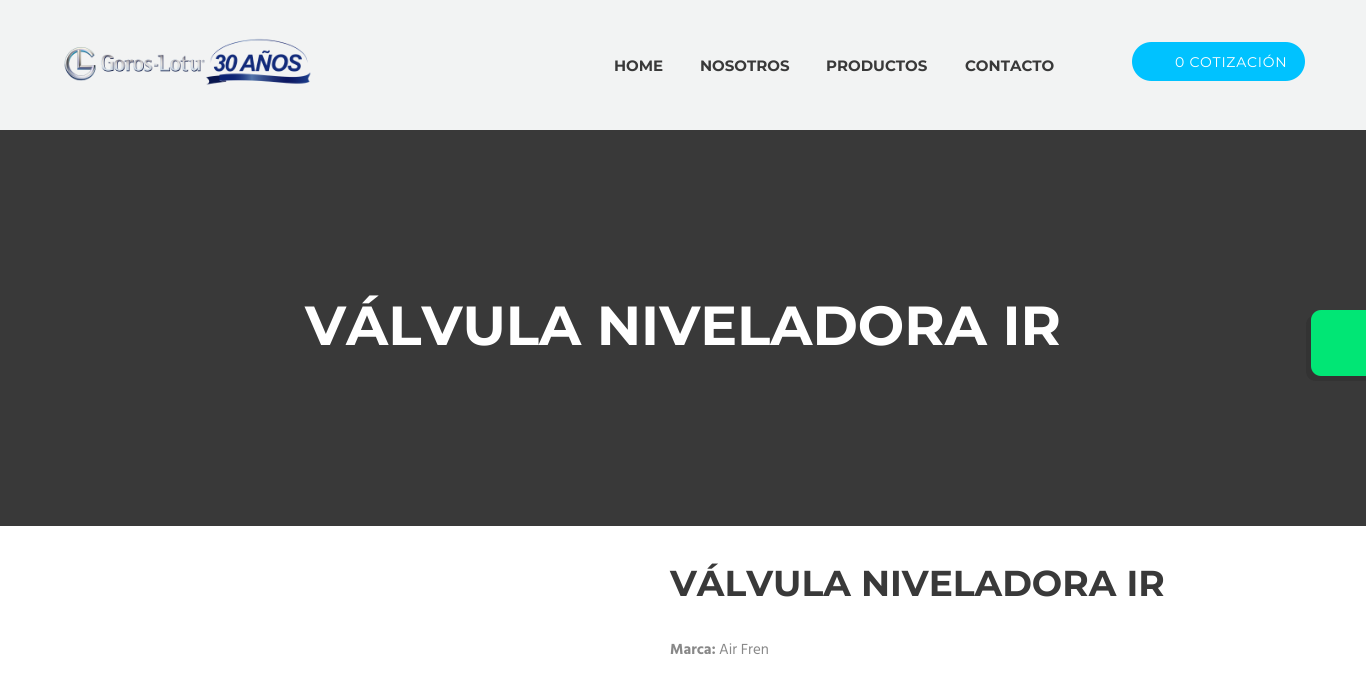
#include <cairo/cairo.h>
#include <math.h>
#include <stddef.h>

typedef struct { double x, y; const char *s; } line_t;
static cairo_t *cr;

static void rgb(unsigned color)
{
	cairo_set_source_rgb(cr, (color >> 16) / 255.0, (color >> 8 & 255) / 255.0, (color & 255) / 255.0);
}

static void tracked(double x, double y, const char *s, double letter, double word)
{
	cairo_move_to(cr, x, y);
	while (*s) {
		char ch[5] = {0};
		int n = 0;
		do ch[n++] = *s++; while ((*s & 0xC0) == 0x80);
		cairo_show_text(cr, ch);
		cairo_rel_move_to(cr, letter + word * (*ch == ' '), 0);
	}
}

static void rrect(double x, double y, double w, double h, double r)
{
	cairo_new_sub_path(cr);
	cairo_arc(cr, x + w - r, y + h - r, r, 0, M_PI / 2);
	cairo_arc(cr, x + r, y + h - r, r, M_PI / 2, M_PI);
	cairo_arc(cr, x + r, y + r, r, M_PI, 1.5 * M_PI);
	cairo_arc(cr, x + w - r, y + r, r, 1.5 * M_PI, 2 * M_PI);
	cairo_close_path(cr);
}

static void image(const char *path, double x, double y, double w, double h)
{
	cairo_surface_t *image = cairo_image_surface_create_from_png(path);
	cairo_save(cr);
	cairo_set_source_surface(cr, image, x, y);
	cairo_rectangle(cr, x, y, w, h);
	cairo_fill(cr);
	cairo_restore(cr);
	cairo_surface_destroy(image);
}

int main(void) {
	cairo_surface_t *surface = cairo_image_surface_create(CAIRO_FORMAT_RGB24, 1366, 676);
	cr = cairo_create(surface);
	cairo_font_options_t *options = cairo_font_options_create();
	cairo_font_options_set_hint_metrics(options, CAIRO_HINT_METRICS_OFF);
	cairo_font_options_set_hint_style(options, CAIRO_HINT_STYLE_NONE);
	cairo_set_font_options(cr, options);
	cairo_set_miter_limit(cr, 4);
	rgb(0xffffff);
	cairo_paint(cr);
	rgb(0xf2f3f3);
	cairo_rectangle(cr, 0, 0, 1366, 130);
	cairo_fill(cr);
	image("img/1.png", 64, 38, 247, 47);
	rgb(0x00c2ff);
	rrect(1132, 42, 173, 39, 19.5);
	cairo_fill(cr);
	rgb(0x393939);
	cairo_rectangle(cr, 0, 130, 1366, 396);
	cairo_fill(cr);
	rgb(0x333333);
	cairo_new_path(cr);
	cairo_move_to(cr, 1312, 316);
	cairo_curve_to(cr, 1308, 317, 1306, 321, 1306, 325);
	cairo_line_to(cr, 1306, 371);
	cairo_curve_to(cr, 1306, 377, 1310, 381, 1316, 381);
	cairo_line_to(cr, 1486, 381);
	cairo_curve_to(cr, 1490, 381, 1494, 379, 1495, 375);
	cairo_line_to(cr, 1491, 376);
	cairo_line_to(cr, 1321, 376);
	cairo_curve_to(cr, 1315, 376, 1311, 372, 1311, 366);
	cairo_line_to(cr, 1311, 320);
	cairo_close_path(cr);
	cairo_fill(cr);
	rgb(0x01e675);
	rrect(1311, 310, 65, 66, 10);
	cairo_fill(cr);
	cairo_select_font_face(cr, "Montserrat", CAIRO_FONT_SLANT_NORMAL, CAIRO_FONT_WEIGHT_BOLD);
	cairo_set_font_size(cr, 15);
	rgb(0x393939);
	{
		static const line_t items[] = {
			{614, 71, "HOME"},
			{700, 71, "NOSOTROS"},
			{826, 71, "PRODUCTOS"},
			{965, 71, "CONTACTO"},
		};
		for (size_t i = 0; i < sizeof items / sizeof *items; i++) {
			cairo_move_to(cr, items[i].x, items[i].y);
			cairo_show_text(cr, items[i].s);
		}
	}
	cairo_select_font_face(cr, "Montserrat", CAIRO_FONT_SLANT_NORMAL, CAIRO_FONT_WEIGHT_NORMAL);
	cairo_set_font_size(cr, 14);
	rgb(0xffffff);
	tracked(1175, 67, "0 COTIZACIÓN", 0.75, 0);
	cairo_select_font_face(cr, "Montserrat", CAIRO_FONT_SLANT_NORMAL, CAIRO_FONT_WEIGHT_BOLD);
	cairo_set_font_size(cr, 55);
	cairo_move_to(cr, 305, 345);
	cairo_show_text(cr, "VÁLVULA NIVELADORA IR");
	cairo_set_font_size(cr, 36);
	rgb(0x393939);
	cairo_move_to(cr, 670, 596);
	cairo_show_text(cr, "VÁLVULA NIVELADORA IR");
	cairo_select_font_face(cr, "Hind", CAIRO_FONT_SLANT_NORMAL, CAIRO_FONT_WEIGHT_BOLD);
	cairo_set_font_size(cr, 15);
	rgb(0x888888);
	cairo_move_to(cr, 670, 654);
	cairo_show_text(cr, "Marca:");
	cairo_select_font_face(cr, "Hind", CAIRO_FONT_SLANT_NORMAL, CAIRO_FONT_WEIGHT_NORMAL);
	cairo_move_to(cr, 719, 654);
	cairo_show_text(cr, "Air Fren");
	cairo_surface_write_to_png(surface, "page.png");
	cairo_font_options_destroy(options);
	cairo_destroy(cr);
	cairo_surface_destroy(surface);
	return 0;
}
